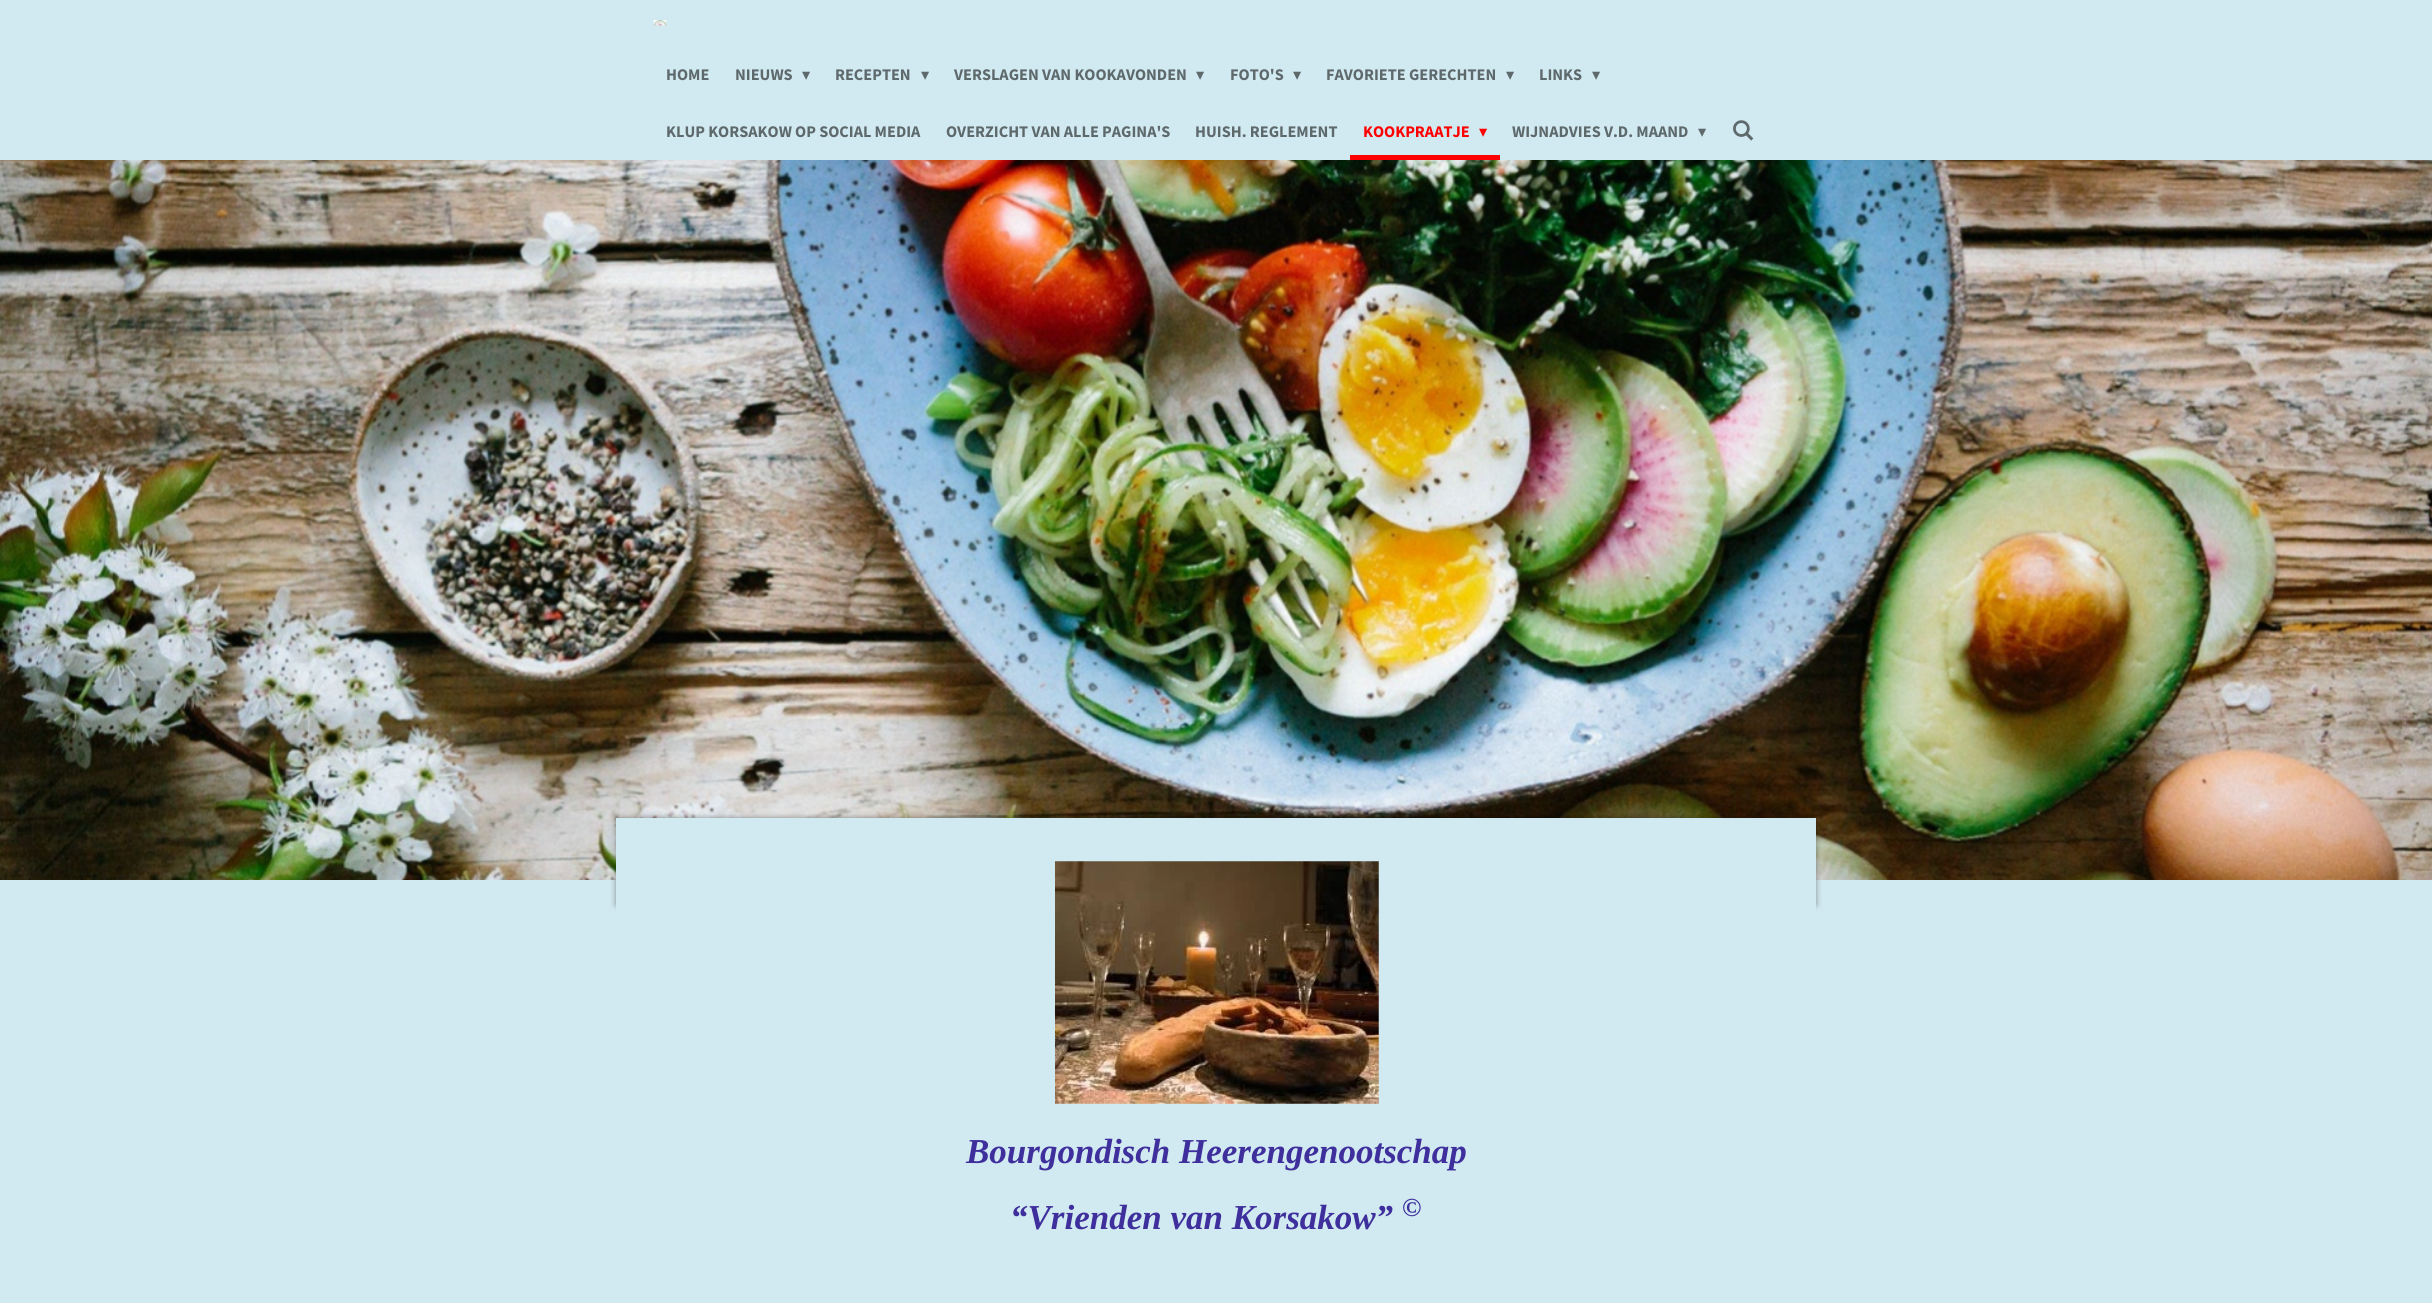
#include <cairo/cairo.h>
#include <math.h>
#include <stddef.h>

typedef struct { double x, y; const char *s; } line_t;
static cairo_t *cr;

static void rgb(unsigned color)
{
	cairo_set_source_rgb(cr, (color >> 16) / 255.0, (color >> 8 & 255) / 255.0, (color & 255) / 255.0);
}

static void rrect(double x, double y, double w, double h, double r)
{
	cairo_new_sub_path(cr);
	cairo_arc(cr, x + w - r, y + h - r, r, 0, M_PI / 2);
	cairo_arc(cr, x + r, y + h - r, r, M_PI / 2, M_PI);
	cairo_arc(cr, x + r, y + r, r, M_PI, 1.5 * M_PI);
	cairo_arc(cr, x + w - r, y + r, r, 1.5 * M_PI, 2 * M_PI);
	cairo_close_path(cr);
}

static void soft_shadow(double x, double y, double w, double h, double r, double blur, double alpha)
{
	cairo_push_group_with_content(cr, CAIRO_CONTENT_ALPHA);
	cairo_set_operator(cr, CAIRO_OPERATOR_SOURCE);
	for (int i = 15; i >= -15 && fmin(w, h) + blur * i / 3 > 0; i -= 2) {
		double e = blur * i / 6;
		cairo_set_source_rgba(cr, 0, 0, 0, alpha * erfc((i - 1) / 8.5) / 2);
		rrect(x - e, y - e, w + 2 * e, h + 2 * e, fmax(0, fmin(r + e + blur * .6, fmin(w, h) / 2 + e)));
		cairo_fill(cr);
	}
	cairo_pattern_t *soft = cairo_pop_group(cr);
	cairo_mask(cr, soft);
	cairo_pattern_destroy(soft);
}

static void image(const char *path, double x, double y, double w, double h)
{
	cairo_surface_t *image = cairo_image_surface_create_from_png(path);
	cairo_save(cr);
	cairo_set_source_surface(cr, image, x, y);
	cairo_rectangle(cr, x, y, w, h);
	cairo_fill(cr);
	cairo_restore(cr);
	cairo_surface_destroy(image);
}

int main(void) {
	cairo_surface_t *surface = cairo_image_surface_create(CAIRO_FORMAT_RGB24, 2432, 1303);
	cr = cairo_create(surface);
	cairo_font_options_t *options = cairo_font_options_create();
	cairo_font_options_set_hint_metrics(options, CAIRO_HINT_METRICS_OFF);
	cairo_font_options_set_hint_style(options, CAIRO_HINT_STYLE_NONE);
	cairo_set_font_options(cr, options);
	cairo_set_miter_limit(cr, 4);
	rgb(0xd1e9f0);
	cairo_paint(cr);
	image("img/1.png", 653, 20, 14, 7);
	rgb(0xff0000);
	cairo_rectangle(cr, 1350, 155, 150, 5);
	cairo_fill(cr);
	image("img/2.png", 1733, 120, 21, 21);
	image("img/3.png", 0, 160, 2432, 720);
	rgb(0x000000);
	soft_shadow(616, 818, 1200, 87, 0, 3, 0.4);
	rgb(0xd1e9f0);
	cairo_rectangle(cr, 616, 818, 1200, 93);
	cairo_fill(cr);
	image("img/4.png", 1055, 861, 324, 243);
	cairo_select_font_face(cr, "Source Sans Pro", CAIRO_FONT_SLANT_NORMAL, CAIRO_FONT_WEIGHT_BOLD);
	cairo_set_font_size(cr, 16.25);
	rgb(0x5e696c);
	cairo_move_to(cr, 666, 80);
	cairo_show_text(cr, "HOME");
	cairo_move_to(cr, 735, 80);
	cairo_show_text(cr, "NIEUWS");
	cairo_select_font_face(cr, "DejaVu Sans", CAIRO_FONT_SLANT_NORMAL, CAIRO_FONT_WEIGHT_NORMAL);
	cairo_move_to(cr, 802, 80);
	cairo_show_text(cr, "▾");
	cairo_select_font_face(cr, "Source Sans Pro", CAIRO_FONT_SLANT_NORMAL, CAIRO_FONT_WEIGHT_BOLD);
	cairo_move_to(cr, 835, 80);
	cairo_show_text(cr, "RECEPTEN");
	cairo_select_font_face(cr, "DejaVu Sans", CAIRO_FONT_SLANT_NORMAL, CAIRO_FONT_WEIGHT_NORMAL);
	cairo_move_to(cr, 921, 80);
	cairo_show_text(cr, "▾");
	cairo_select_font_face(cr, "Source Sans Pro", CAIRO_FONT_SLANT_NORMAL, CAIRO_FONT_WEIGHT_BOLD);
	cairo_move_to(cr, 954, 80);
	cairo_show_text(cr, "VERSLAGEN VAN KOOKAVONDEN");
	cairo_select_font_face(cr, "DejaVu Sans", CAIRO_FONT_SLANT_NORMAL, CAIRO_FONT_WEIGHT_NORMAL);
	cairo_move_to(cr, 1196, 80);
	cairo_show_text(cr, "▾");
	cairo_select_font_face(cr, "Source Sans Pro", CAIRO_FONT_SLANT_NORMAL, CAIRO_FONT_WEIGHT_BOLD);
	cairo_move_to(cr, 1230, 80);
	cairo_show_text(cr, "FOTO'S");
	cairo_select_font_face(cr, "DejaVu Sans", CAIRO_FONT_SLANT_NORMAL, CAIRO_FONT_WEIGHT_NORMAL);
	cairo_move_to(cr, 1293, 80);
	cairo_show_text(cr, "▾");
	cairo_select_font_face(cr, "Source Sans Pro", CAIRO_FONT_SLANT_NORMAL, CAIRO_FONT_WEIGHT_BOLD);
	cairo_move_to(cr, 1326, 80);
	cairo_show_text(cr, "FAVORIETE GERECHTEN");
	cairo_select_font_face(cr, "DejaVu Sans", CAIRO_FONT_SLANT_NORMAL, CAIRO_FONT_WEIGHT_NORMAL);
	cairo_move_to(cr, 1506, 80);
	cairo_show_text(cr, "▾");
	cairo_select_font_face(cr, "Source Sans Pro", CAIRO_FONT_SLANT_NORMAL, CAIRO_FONT_WEIGHT_BOLD);
	cairo_move_to(cr, 1539, 80);
	cairo_show_text(cr, "LINKS");
	cairo_select_font_face(cr, "DejaVu Sans", CAIRO_FONT_SLANT_NORMAL, CAIRO_FONT_WEIGHT_NORMAL);
	cairo_move_to(cr, 1592, 80);
	cairo_show_text(cr, "▾");
	cairo_select_font_face(cr, "Source Sans Pro", CAIRO_FONT_SLANT_NORMAL, CAIRO_FONT_WEIGHT_BOLD);
	{
		static const line_t items[] = {
			{666, 137, "KLUP KORSAKOW OP SOCIAL MEDIA"},
			{946, 137, "OVERZICHT VAN ALLE PAGINA'S"},
			{1195, 137, "HUISH. REGLEMENT"},
		};
		for (size_t i = 0; i < sizeof items / sizeof *items; i++) {
			cairo_move_to(cr, items[i].x, items[i].y);
			cairo_show_text(cr, items[i].s);
		}
	}
	rgb(0xff0000);
	cairo_move_to(cr, 1363, 137);
	cairo_show_text(cr, "KOOKPRAATJE");
	cairo_select_font_face(cr, "DejaVu Sans", CAIRO_FONT_SLANT_NORMAL, CAIRO_FONT_WEIGHT_NORMAL);
	cairo_move_to(cr, 1479, 137);
	cairo_show_text(cr, "▾");
	cairo_select_font_face(cr, "Source Sans Pro", CAIRO_FONT_SLANT_NORMAL, CAIRO_FONT_WEIGHT_BOLD);
	rgb(0x5e696c);
	cairo_move_to(cr, 1512, 137);
	cairo_show_text(cr, "WIJNADVIES V.D. MAAND");
	cairo_select_font_face(cr, "DejaVu Sans", CAIRO_FONT_SLANT_NORMAL, CAIRO_FONT_WEIGHT_NORMAL);
	cairo_move_to(cr, 1698, 137);
	cairo_show_text(cr, "▾");
	cairo_select_font_face(cr, "Liberation Serif", CAIRO_FONT_SLANT_ITALIC, CAIRO_FONT_WEIGHT_BOLD);
	cairo_set_font_size(cr, 35);
	rgb(0x3e2f9d);
	cairo_move_to(cr, 966, 1163);
	cairo_show_text(cr, "Bourgondisch Heerengenootschap");
	cairo_move_to(cr, 1010, 1229);
	cairo_show_text(cr, "“Vrienden van Korsakow”");
	cairo_set_font_size(cr, 26);
	cairo_move_to(cr, 1402, 1216);
	cairo_show_text(cr, "©");
	cairo_surface_write_to_png(surface, "page.png");
	cairo_font_options_destroy(options);
	cairo_destroy(cr);
	cairo_surface_destroy(surface);
	return 0;
}
